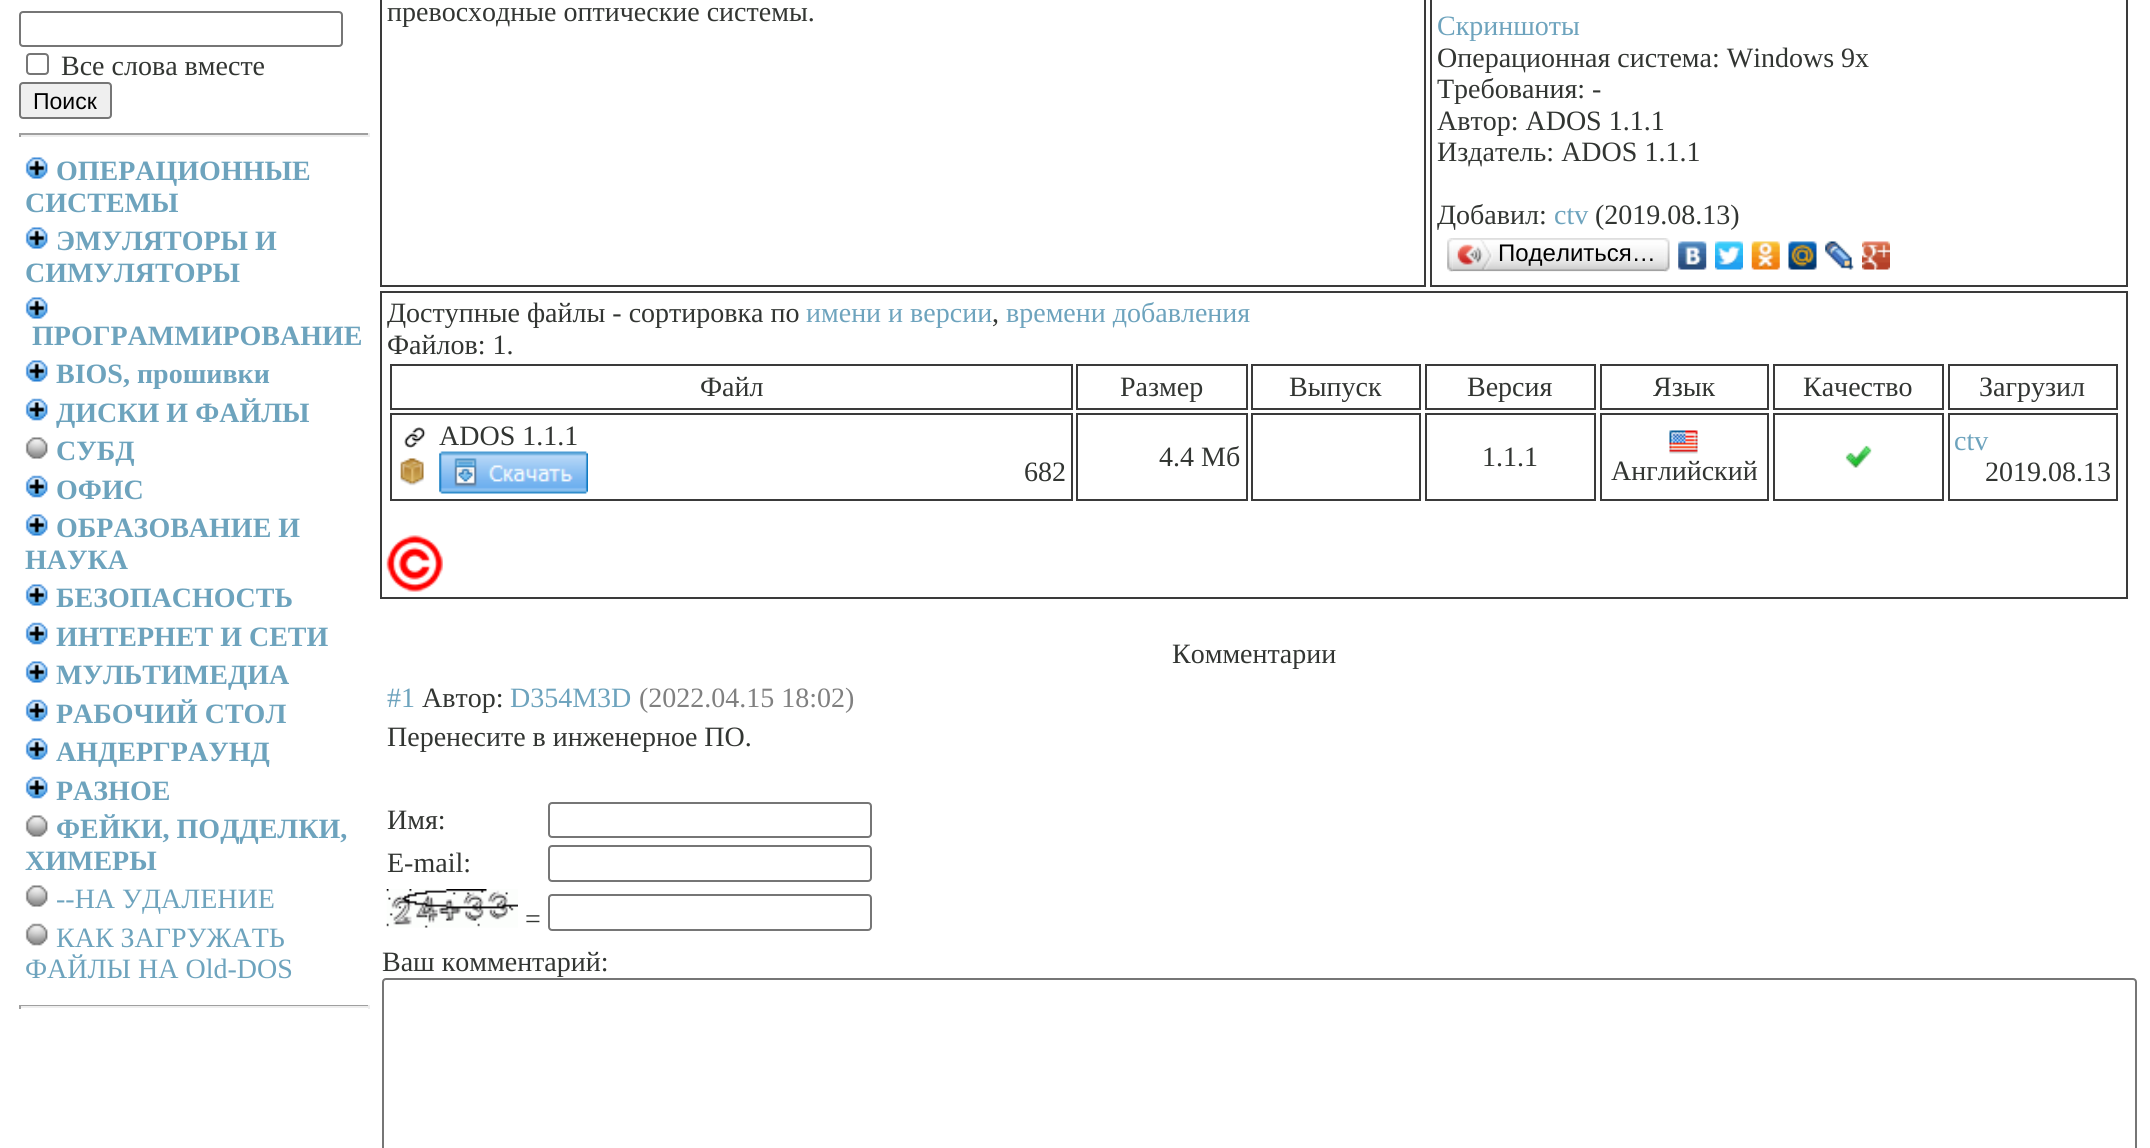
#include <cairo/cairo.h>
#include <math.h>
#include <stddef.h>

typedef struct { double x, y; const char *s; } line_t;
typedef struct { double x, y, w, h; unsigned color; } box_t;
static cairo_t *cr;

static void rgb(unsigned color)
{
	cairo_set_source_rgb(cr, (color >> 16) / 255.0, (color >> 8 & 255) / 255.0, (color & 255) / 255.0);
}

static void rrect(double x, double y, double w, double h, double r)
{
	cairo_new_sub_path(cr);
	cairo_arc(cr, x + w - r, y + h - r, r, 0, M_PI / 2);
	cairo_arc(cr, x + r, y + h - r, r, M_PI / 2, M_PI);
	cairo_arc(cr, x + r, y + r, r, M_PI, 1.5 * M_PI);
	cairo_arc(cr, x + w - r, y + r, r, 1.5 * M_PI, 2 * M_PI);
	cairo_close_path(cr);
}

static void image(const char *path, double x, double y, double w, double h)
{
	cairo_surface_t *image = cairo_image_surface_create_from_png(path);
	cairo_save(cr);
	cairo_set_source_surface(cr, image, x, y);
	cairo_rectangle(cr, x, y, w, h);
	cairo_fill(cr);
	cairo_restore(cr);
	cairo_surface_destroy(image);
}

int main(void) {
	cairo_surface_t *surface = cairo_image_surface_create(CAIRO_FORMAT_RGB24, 2150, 1148);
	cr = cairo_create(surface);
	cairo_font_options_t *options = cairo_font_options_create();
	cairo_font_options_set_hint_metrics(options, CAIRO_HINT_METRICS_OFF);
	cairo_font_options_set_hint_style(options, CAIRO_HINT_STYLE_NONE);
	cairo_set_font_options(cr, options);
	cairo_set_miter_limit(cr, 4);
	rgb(0xffffff);
	cairo_paint(cr);
	rrect(20, 12, 322, 34, 3);
	rgb(0x767676);
	cairo_stroke(cr);
	rrect(27, 54, 21, 20, 3);
	cairo_stroke(cr);
	rgb(0xefefef);
	rrect(20, 83, 91, 35, 3);
	cairo_fill_preserve(cr);
	rgb(0x767676);
	cairo_stroke(cr);
	{
		static const box_t items[] = {
			{19, 133, 350, 2, 0x9f9f9f},
			{368, 133, 2, 4, 0xeeeeee},
			{19, 135, 350, 2, 0xeeeeee},
			{19, 133, 2, 4, 0x9f9f9f},
		};
		for (size_t i = 0; i < sizeof items / sizeof *items; i++) {
			rgb(items[i].color);
			cairo_rectangle(cr, items[i].x, items[i].y, items[i].w, items[i].h);
			cairo_fill(cr);
		}
	}
	image("img/1.png", 25, 157, 23, 22);
	image("img/1.png", 25, 227, 23, 22);
	image("img/1.png", 25, 297, 23, 22);
	image("img/1.png", 25, 360, 23, 22);
	image("img/2.png", 25, 398, 23, 23);
	image("img/3.png", 25, 437, 23, 22);
	image("img/2.png", 25, 475, 23, 23);
	image("img/1.png", 25, 514, 23, 22);
	image("img/1.png", 25, 584, 23, 22);
	image("img/2.png", 25, 622, 23, 23);
	image("img/1.png", 25, 661, 23, 22);
	image("img/2.png", 25, 699, 23, 23);
	image("img/1.png", 25, 738, 23, 22);
	image("img/2.png", 25, 776, 23, 23);
	image("img/3.png", 25, 815, 23, 22);
	image("img/3.png", 25, 885, 23, 22);
	image("img/4.png", 25, 923, 23, 23);
	{
		static const box_t items[] = {
			{19, 1005, 350, 1, 0x9f9f9f},
			{368, 1005, 2, 4, 0xeeeeee},
			{19, 1006, 350, 2, 0xeeeeee},
			{19, 1005, 2, 4, 0x9f9f9f},
		};
		for (size_t i = 0; i < sizeof items / sizeof *items; i++) {
			rgb(items[i].color);
			cairo_rectangle(cr, items[i].x, items[i].y, items[i].w, items[i].h);
			cairo_fill(cr);
		}
	}
	cairo_rectangle(cr, 381, -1, 1044, 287);
	rgb(0x3a3a3a);
	cairo_stroke(cr);
	cairo_rectangle(cr, 1431, -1, 696, 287);
	cairo_stroke(cr);
	image("img/5.png", 1452, 238, 213, 34);
	image("img/6.png", 1447, 238, 6, 34);
	image("img/7.png", 1457, 240, 36, 30);
	image("img/8.png", 1664, 238, 6, 34);
	image("img/9.png", 1678, 241, 29, 29);
	image("img/10.png", 1715, 241, 28, 29);
	image("img/11.png", 1751, 241, 29, 29);
	image("img/12.png", 1788, 241, 29, 29);
	image("img/13.png", 1825, 241, 29, 29);
	image("img/14.png", 1862, 241, 28, 29);
	cairo_rectangle(cr, 381, 292, 1746, 306);
	cairo_stroke(cr);
	cairo_rectangle(cr, 391, 365, 681, 44);
	cairo_stroke(cr);
	cairo_rectangle(cr, 1077, 365, 170, 44);
	cairo_stroke(cr);
	cairo_rectangle(cr, 1252, 365, 168, 44);
	cairo_stroke(cr);
	cairo_rectangle(cr, 1426, 365, 169, 44);
	cairo_stroke(cr);
	cairo_rectangle(cr, 1601, 365, 167, 44);
	cairo_stroke(cr);
	cairo_rectangle(cr, 1774, 365, 169, 44);
	cairo_stroke(cr);
	cairo_rectangle(cr, 1949, 365, 168, 44);
	cairo_stroke(cr);
	cairo_rectangle(cr, 391, 414, 681, 86);
	cairo_stroke(cr);
	image("img/15.png", 404, 427, 22, 21);
	image("img/16.png", 400, 458, 24, 28);
	image("img/17.png", 439, 451, 149, 43);
	cairo_rectangle(cr, 1077, 414, 170, 86);
	cairo_stroke(cr);
	cairo_rectangle(cr, 1252, 414, 168, 86);
	cairo_stroke(cr);
	cairo_rectangle(cr, 1426, 414, 169, 86);
	cairo_stroke(cr);
	cairo_rectangle(cr, 1774, 414, 169, 86);
	cairo_stroke(cr);
	image("img/18.png", 1845, 445, 27, 23);
	cairo_rectangle(cr, 1949, 414, 168, 86);
	cairo_stroke(cr);
	cairo_rectangle(cr, 1601, 414, 167, 86);
	cairo_stroke(cr);
	image("img/19.png", 1669, 430, 29, 24);
	image("img/20.png", 386, 535, 57, 57);
	rrect(549, 803, 322, 34, 3);
	rgb(0x767676);
	cairo_stroke(cr);
	rrect(549, 846, 322, 35, 3);
	cairo_stroke(cr);
	image("img/21.png", 386, 889, 132, 39);
	rrect(549, 895, 322, 35, 3);
	cairo_stroke(cr);
	rrect(383, 979, 1753, 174, 3);
	cairo_stroke(cr);
	cairo_select_font_face(cr, "Liberation Serif", CAIRO_FONT_SLANT_NORMAL, CAIRO_FONT_WEIGHT_NORMAL);
	cairo_set_font_size(cr, 28);
	rgb(0x323532);
	cairo_move_to(cr, 61, 75);
	cairo_show_text(cr, "Все слова вместе");
	cairo_select_font_face(cr, "Liberation Sans", CAIRO_FONT_SLANT_NORMAL, CAIRO_FONT_WEIGHT_NORMAL);
	cairo_set_font_size(cr, 23);
	rgb(0x000000);
	cairo_move_to(cr, 33, 109);
	cairo_show_text(cr, "Поиск");
	cairo_select_font_face(cr, "Liberation Serif", CAIRO_FONT_SLANT_NORMAL, CAIRO_FONT_WEIGHT_BOLD);
	cairo_set_font_size(cr, 28);
	rgb(0x6da3bd);
	{
		static const line_t items[] = {
			{56, 180, "ОПЕРАЦИОННЫЕ"},
			{25, 212, "СИСТЕМЫ"},
			{56, 250, "ЭМУЛЯТОРЫ И"},
			{25, 282, "СИМУЛЯТОРЫ"},
			{32, 345, "ПРОГРАММИРОВАНИЕ"},
			{56, 383, "BIOS, прошивки"},
			{56, 422, "ДИСКИ И ФАЙЛЫ"},
			{56, 460, "СУБД"},
			{56, 499, "ОФИС"},
			{56, 537, "ОБРАЗОВАНИЕ И"},
			{25, 569, "НАУКА"},
			{56, 607, "БЕЗОПАСНОСТЬ"},
			{56, 646, "ИНТЕРНЕТ И СЕТИ"},
			{56, 684, "МУЛЬТИМЕДИА"},
			{56, 723, "РАБОЧИЙ СТОЛ"},
			{56, 761, "АНДЕРГРАУНД"},
			{56, 800, "РАЗНОЕ"},
			{56, 838, "ФЕЙКИ, ПОДДЕЛКИ,"},
			{25, 870, "ХИМЕРЫ"},
		};
		for (size_t i = 0; i < sizeof items / sizeof *items; i++) {
			cairo_move_to(cr, items[i].x, items[i].y);
			cairo_show_text(cr, items[i].s);
		}
	}
	cairo_select_font_face(cr, "Liberation Serif", CAIRO_FONT_SLANT_NORMAL, CAIRO_FONT_WEIGHT_NORMAL);
	{
		static const line_t items[] = {
			{56, 908, "--НА УДАЛЕНИЕ"},
			{56, 947, "КАК ЗАГРУЖАТЬ"},
			{25, 978, "ФАЙЛЫ НА Old-DOS"},
		};
		for (size_t i = 0; i < sizeof items / sizeof *items; i++) {
			cairo_move_to(cr, items[i].x, items[i].y);
			cairo_show_text(cr, items[i].s);
		}
	}
	rgb(0x323532);
	cairo_move_to(cr, 387, 21);
	cairo_show_text(cr, "превосходные оптические системы.");
	rgb(0x6da3bd);
	cairo_move_to(cr, 1437, 35);
	cairo_show_text(cr, "Скриншоты");
	rgb(0x323532);
	{
		static const line_t items[] = {
			{1437, 67, "Операционная система: Windows 9x"},
			{1437, 98, "Требования: -"},
			{1437, 130, "Автор: ADOS 1.1.1"},
			{1437, 161, "Издатель: ADOS 1.1.1"},
			{1437, 224, "Добавил:"},
		};
		for (size_t i = 0; i < sizeof items / sizeof *items; i++) {
			cairo_move_to(cr, items[i].x, items[i].y);
			cairo_show_text(cr, items[i].s);
		}
	}
	rgb(0x6da3bd);
	cairo_move_to(cr, 1554, 224);
	cairo_show_text(cr, "ctv");
	rgb(0x323532);
	cairo_move_to(cr, 1595, 224);
	cairo_show_text(cr, "(2019.08.13)");
	cairo_select_font_face(cr, "Liberation Sans", CAIRO_FONT_SLANT_NORMAL, CAIRO_FONT_WEIGHT_NORMAL);
	cairo_set_font_size(cr, 24);
	rgb(0x000000);
	cairo_move_to(cr, 1498, 261);
	cairo_show_text(cr, "Поделиться…");
	cairo_select_font_face(cr, "Liberation Serif", CAIRO_FONT_SLANT_NORMAL, CAIRO_FONT_WEIGHT_NORMAL);
	cairo_set_font_size(cr, 28);
	rgb(0x323532);
	cairo_move_to(cr, 387, 322);
	cairo_show_text(cr, "Доступные файлы - сортировка по");
	rgb(0x6da3bd);
	cairo_move_to(cr, 806, 322);
	cairo_show_text(cr, "имени и версии");
	rgb(0x323532);
	cairo_move_to(cr, 992, 322);
	cairo_show_text(cr, ",");
	rgb(0x6da3bd);
	cairo_move_to(cr, 1006, 322);
	cairo_show_text(cr, "времени добавления");
	rgb(0x323532);
	{
		static const line_t items[] = {
			{387, 354, "Файлов: 1."},
			{700, 396, "Файл"},
			{1120, 396, "Размер"},
			{1289, 396, "Выпуск"},
			{1467, 396, "Версия"},
			{1653, 396, "Язык"},
			{1803, 396, "Качество"},
			{1979, 396, "Загрузил"},
			{439, 445, "ADOS 1.1.1"},
			{1024, 481, "682"},
			{1159, 466, "4.4 Мб"},
			{1482, 466, "1.1.1"},
		};
		for (size_t i = 0; i < sizeof items / sizeof *items; i++) {
			cairo_move_to(cr, items[i].x, items[i].y);
			cairo_show_text(cr, items[i].s);
		}
	}
	rgb(0x6da3bd);
	cairo_move_to(cr, 1954, 450);
	cairo_show_text(cr, "ctv");
	rgb(0x323532);
	{
		static const line_t items[] = {
			{1985, 481, "2019.08.13"},
			{1611, 480, "Английский"},
			{1172, 663, "Комментарии"},
		};
		for (size_t i = 0; i < sizeof items / sizeof *items; i++) {
			cairo_move_to(cr, items[i].x, items[i].y);
			cairo_show_text(cr, items[i].s);
		}
	}
	rgb(0x6da3bd);
	cairo_move_to(cr, 387, 707);
	cairo_show_text(cr, "#1");
	rgb(0x323532);
	cairo_move_to(cr, 422, 707);
	cairo_show_text(cr, "Автор:");
	rgb(0x6da3bd);
	cairo_move_to(cr, 510, 707);
	cairo_show_text(cr, "D354M3D");
	rgb(0x808080);
	cairo_move_to(cr, 639, 707);
	cairo_show_text(cr, "(2022.04.15 18:02)");
	rgb(0x323532);
	{
		static const line_t items[] = {
			{387, 746, "Перенесите в инженерное ПО."},
			{387, 829, "Имя:"},
			{387, 872, "E-mail:"},
			{525, 928, "="},
			{382, 971, "Ваш комментарий:"},
		};
		for (size_t i = 0; i < sizeof items / sizeof *items; i++) {
			cairo_move_to(cr, items[i].x, items[i].y);
			cairo_show_text(cr, items[i].s);
		}
	}
	cairo_surface_write_to_png(surface, "page.png");
	cairo_font_options_destroy(options);
	cairo_destroy(cr);
	cairo_surface_destroy(surface);
	return 0;
}
